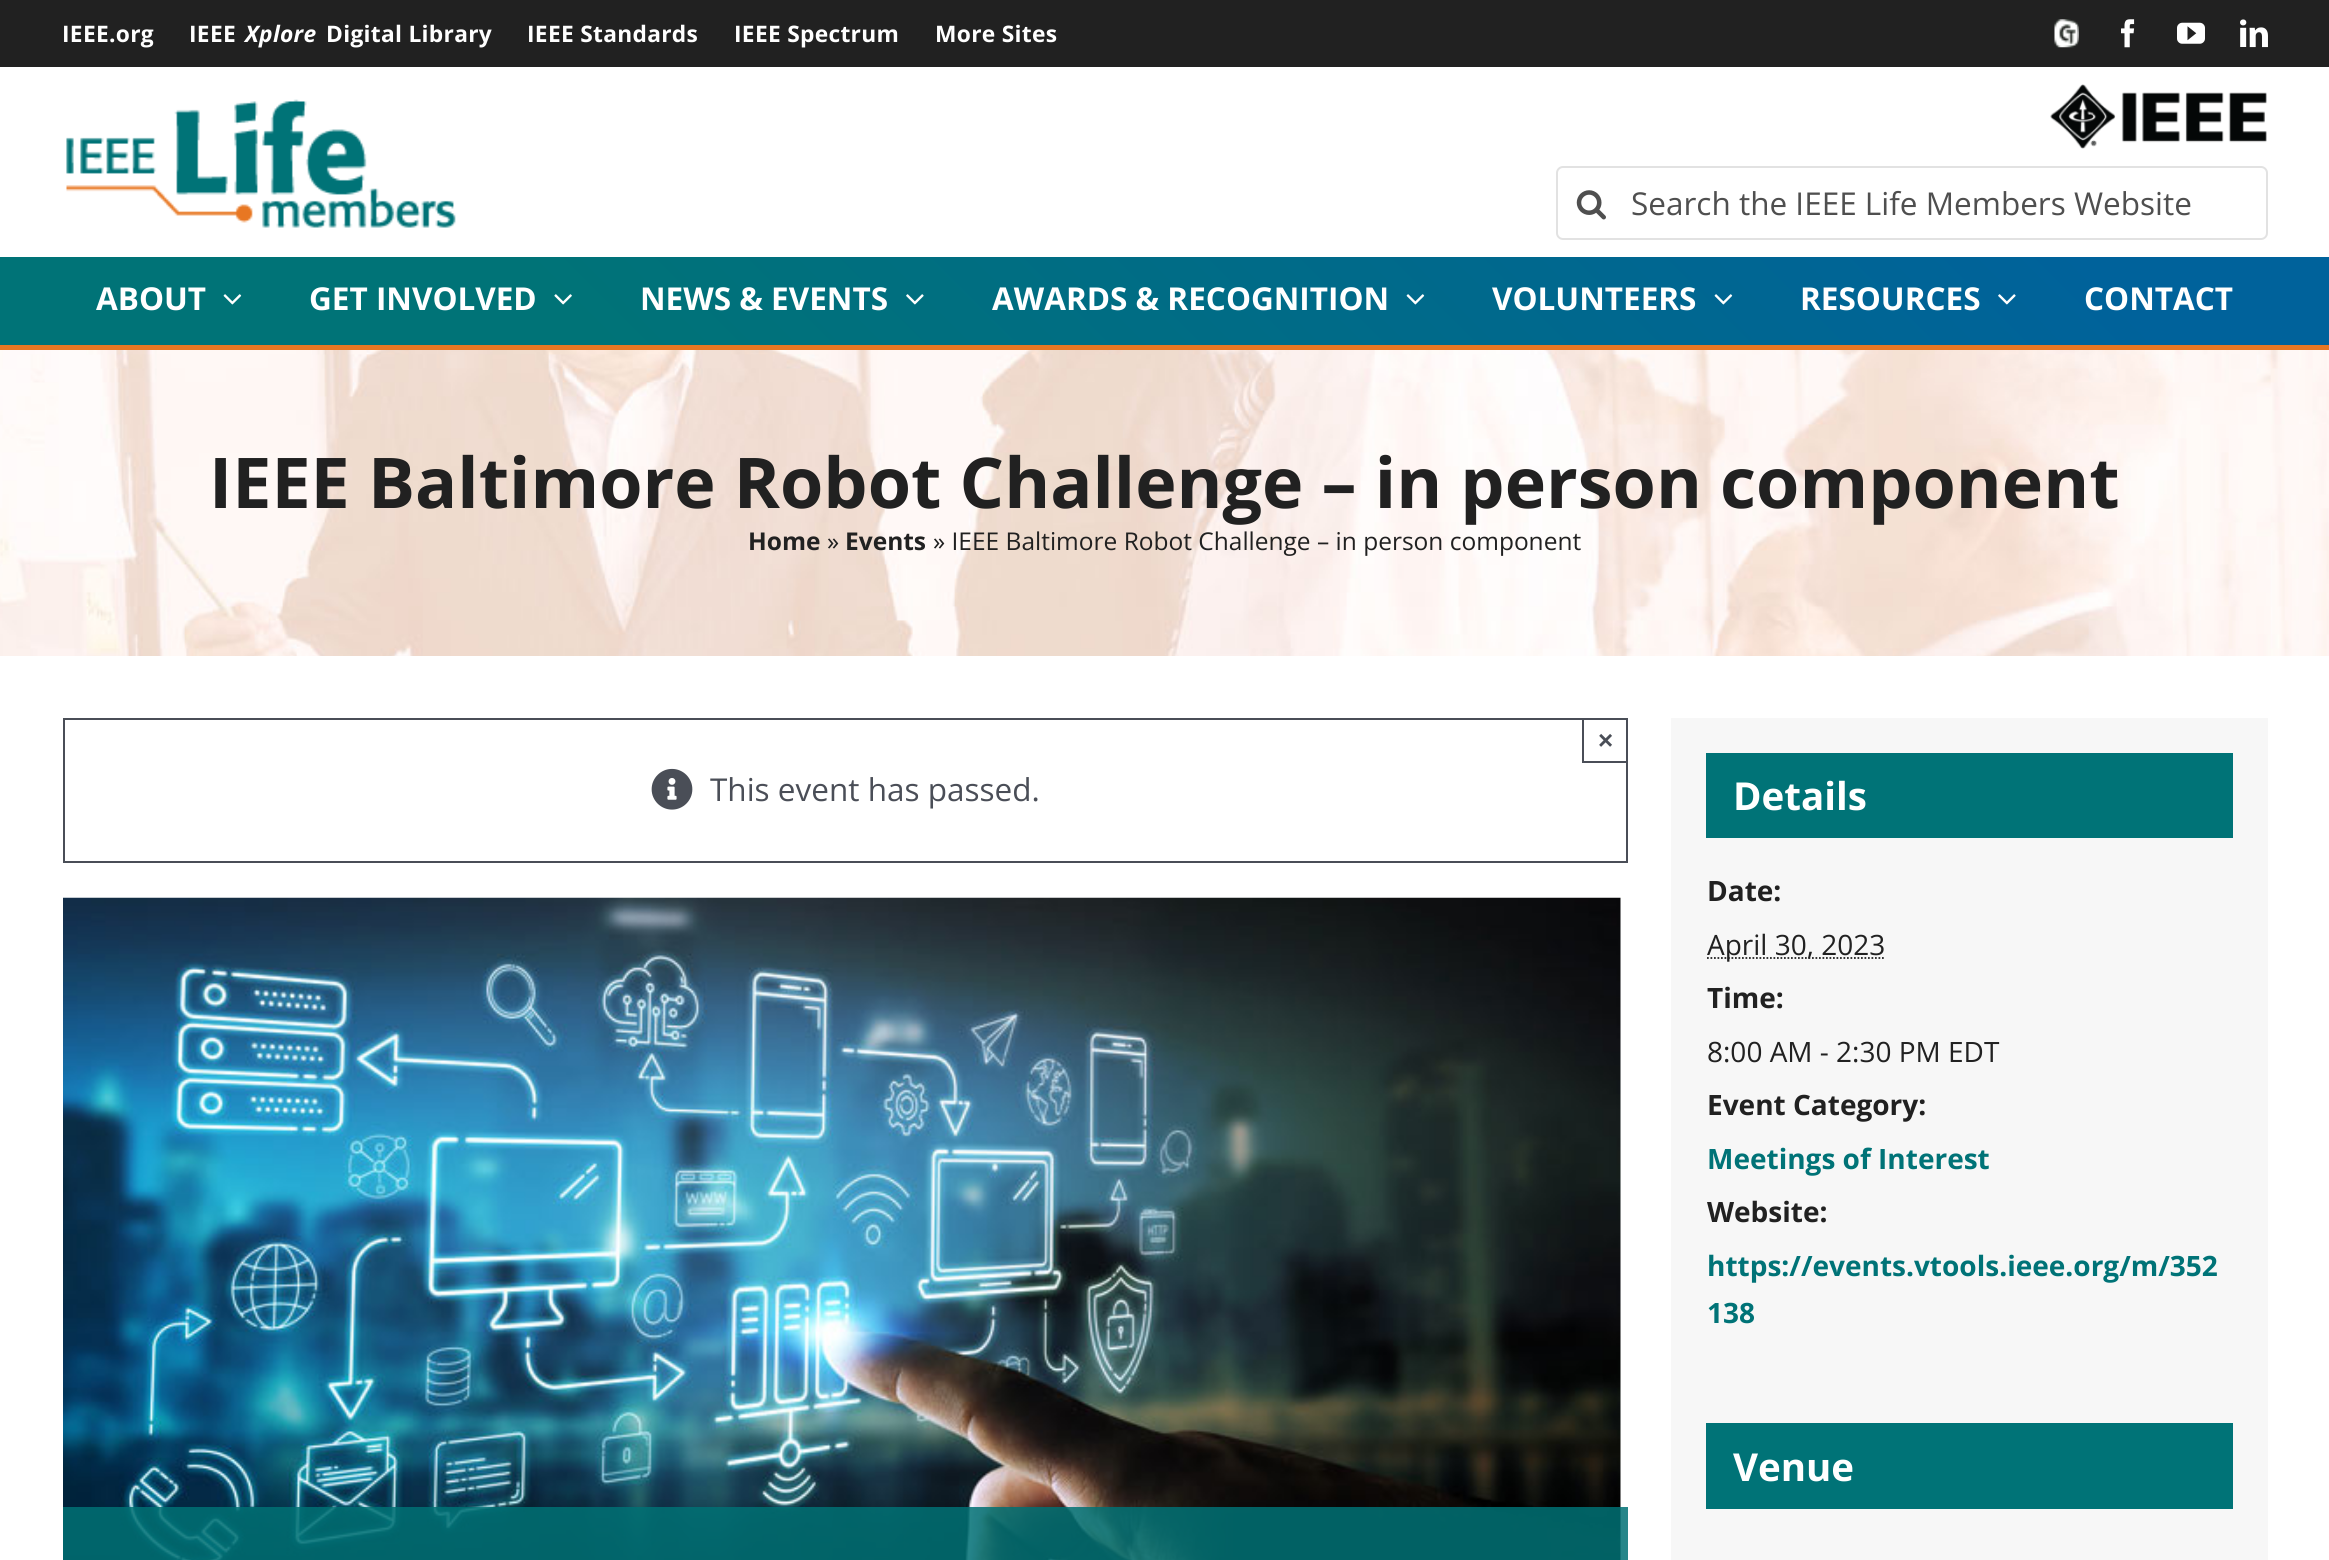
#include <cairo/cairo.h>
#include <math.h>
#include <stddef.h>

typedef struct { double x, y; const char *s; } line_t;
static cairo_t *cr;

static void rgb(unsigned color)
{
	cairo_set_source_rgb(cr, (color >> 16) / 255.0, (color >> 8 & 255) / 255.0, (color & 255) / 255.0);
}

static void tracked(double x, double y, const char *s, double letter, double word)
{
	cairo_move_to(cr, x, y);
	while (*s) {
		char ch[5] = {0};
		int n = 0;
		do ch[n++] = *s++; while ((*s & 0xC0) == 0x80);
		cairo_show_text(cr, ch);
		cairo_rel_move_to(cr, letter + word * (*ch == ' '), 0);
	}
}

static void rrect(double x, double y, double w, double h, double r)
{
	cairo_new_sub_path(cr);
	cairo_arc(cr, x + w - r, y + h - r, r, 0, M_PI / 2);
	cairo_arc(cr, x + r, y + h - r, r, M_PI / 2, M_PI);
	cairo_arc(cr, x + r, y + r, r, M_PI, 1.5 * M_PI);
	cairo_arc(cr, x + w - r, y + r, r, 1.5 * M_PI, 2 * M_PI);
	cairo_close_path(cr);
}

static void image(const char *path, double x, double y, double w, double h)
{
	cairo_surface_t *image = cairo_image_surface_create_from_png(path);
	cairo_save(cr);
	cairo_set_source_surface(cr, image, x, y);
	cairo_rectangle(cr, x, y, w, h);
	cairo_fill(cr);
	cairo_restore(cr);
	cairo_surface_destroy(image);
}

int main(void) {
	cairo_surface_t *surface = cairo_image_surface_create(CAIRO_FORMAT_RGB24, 2329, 1560);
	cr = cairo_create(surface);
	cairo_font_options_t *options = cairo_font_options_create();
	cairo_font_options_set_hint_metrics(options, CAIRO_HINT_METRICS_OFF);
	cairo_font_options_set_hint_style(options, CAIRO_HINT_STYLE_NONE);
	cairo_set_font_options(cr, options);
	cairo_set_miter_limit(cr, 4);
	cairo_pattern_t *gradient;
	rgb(0xffffff);
	cairo_paint(cr);
	rgb(0x212121);
	cairo_rectangle(cr, 0, 0, 2329, 67);
	cairo_fill(cr);
	image("img/1.png", 2054, 19, 25, 29);
	image("img/2.png", 2121, 19, 14, 29);
	image("img/3.png", 2177, 22, 28, 22);
	image("img/4.png", 2240, 19, 28, 29);
	image("img/5.png", 66, 99, 390, 129);
	image("img/6.png", 2050, 84, 217, 65);
	rrect(1557, 167, 710, 72, 6);
	rgb(0xe2e2e2);
	cairo_stroke(cr);
	image("img/7.png", 1576, 190, 30, 30);
	gradient = cairo_pattern_create_linear(560, 905, 1769, -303);
	cairo_pattern_add_color_stop_rgba(gradient, 0.25, 0, 0.451, 0.467, 1);
	cairo_pattern_add_color_stop_rgba(gradient, 0.9, 0, 0.384, 0.608, 1);
	cairo_set_source(cr, gradient);
	cairo_pattern_destroy(gradient);
	cairo_rectangle(cr, 0, 257, 2329, 88);
	cairo_fill(cr);
	rgb(0xe87722);
	cairo_rectangle(cr, 0, 345, 2329, 5);
	cairo_fill(cr);
	image("img/8.png", 223, 294, 19, 11);
	image("img/9.png", 554, 294, 18, 11);
	image("img/10.png", 906, 294, 18, 11);
	image("img/11.png", 1406, 294, 19, 11);
	image("img/12.png", 1714, 294, 19, 11);
	image("img/13.png", 1998, 294, 18, 11);
	image("img/14.png", 0, 350, 2329, 306);
	cairo_rectangle(cr, 64, 719, 1563, 143);
	rgb(0x4a4e57);
	cairo_stroke(cr);
	cairo_rectangle(cr, 1582, 761, 46, 2);
	cairo_fill(cr);
	cairo_rectangle(cr, 1582, 718, 2, 45);
	cairo_fill(cr);
	image("img/15.png", 651, 768, 42, 42);
	image("img/16.png", 63, 897, 1558, 663);
	cairo_set_source_rgba(cr, 0, 0.443, 0.459, 0.85);
	cairo_rectangle(cr, 63, 1507, 1565, 53);
	cairo_fill(cr);
	rgb(0xf7f7f7);
	cairo_rectangle(cr, 1671, 718, 597, 842);
	cairo_fill(cr);
	rgb(0x007377);
	cairo_rectangle(cr, 1706, 753, 527, 85);
	cairo_fill(cr);
	cairo_new_path(cr);
	cairo_move_to(cr, 1707, 958);
	cairo_line_to(cr, 1885, 958);
	rgb(0x212121);
	cairo_set_line_width(cr, 1.8);
	cairo_set_dash(cr, (double[]){1.75, 1.75}, 2, 0);
	cairo_stroke(cr);
	rgb(0x007377);
	cairo_rectangle(cr, 1706, 1423, 527, 86);
	cairo_fill(cr);
	cairo_select_font_face(cr, "Open Sans", CAIRO_FONT_SLANT_NORMAL, CAIRO_FONT_WEIGHT_BOLD);
	cairo_set_font_size(cr, 22.75);
	rgb(0xffffff);
	tracked(62, 42, "IEEE.org", 0.3, 0);
	tracked(189, 42, "IEEE", 0.3, 0);
	cairo_select_font_face(cr, "Open Sans", CAIRO_FONT_SLANT_ITALIC, CAIRO_FONT_WEIGHT_BOLD);
	tracked(245, 42, "Xplore", 0.3, 0);
	cairo_select_font_face(cr, "Open Sans", CAIRO_FONT_SLANT_NORMAL, CAIRO_FONT_WEIGHT_BOLD);
	{
		static const line_t items[] = {
			{326, 42, "Digital Library"},
			{527, 42, "IEEE Standards"},
			{734, 42, "IEEE Spectrum"},
			{935, 42, "More Sites"},
		};
		for (size_t i = 0; i < sizeof items / sizeof *items; i++) {
			tracked(items[i].x, items[i].y, items[i].s, 0.3, 0);
		}
	}
	cairo_select_font_face(cr, "Open Sans", CAIRO_FONT_SLANT_NORMAL, CAIRO_FONT_WEIGHT_NORMAL);
	cairo_set_font_size(cr, 31.5);
	rgb(0x4f4f4f);
	cairo_move_to(cr, 1631, 215);
	cairo_show_text(cr, "Search the IEEE Life Members Website");
	cairo_select_font_face(cr, "Open Sans", CAIRO_FONT_SLANT_NORMAL, CAIRO_FONT_WEIGHT_BOLD);
	rgb(0xffffff);
	{
		static const line_t items[] = {
			{96, 310, "ABOUT"},
			{309, 310, "GET INVOLVED"},
			{640, 310, "NEWS & EVENTS"},
			{992, 310, "AWARDS & RECOGNITION"},
			{1492, 310, "VOLUNTEERS"},
			{1800, 310, "RESOURCES"},
			{2084, 310, "CONTACT"},
		};
		for (size_t i = 0; i < sizeof items / sizeof *items; i++) {
			cairo_move_to(cr, items[i].x, items[i].y);
			cairo_show_text(cr, items[i].s);
		}
	}
	cairo_set_font_size(cr, 70);
	rgb(0x212121);
	cairo_move_to(cr, 209, 508);
	cairo_show_text(cr, "IEEE Baltimore Robot Challenge – in person component");
	cairo_set_font_size(cr, 24.5);
	cairo_move_to(cr, 748, 550);
	cairo_show_text(cr, "Home");
	cairo_select_font_face(cr, "Open Sans", CAIRO_FONT_SLANT_NORMAL, CAIRO_FONT_WEIGHT_NORMAL);
	cairo_move_to(cr, 827, 550);
	cairo_show_text(cr, "»");
	cairo_select_font_face(cr, "Open Sans", CAIRO_FONT_SLANT_NORMAL, CAIRO_FONT_WEIGHT_BOLD);
	cairo_move_to(cr, 845, 550);
	cairo_show_text(cr, "Events");
	cairo_select_font_face(cr, "Open Sans", CAIRO_FONT_SLANT_NORMAL, CAIRO_FONT_WEIGHT_NORMAL);
	cairo_move_to(cr, 933, 550);
	cairo_show_text(cr, "» IEEE Baltimore Robot Challenge – in person component");
	cairo_select_font_face(cr, "Liberation Sans", CAIRO_FONT_SLANT_NORMAL, CAIRO_FONT_WEIGHT_BOLD);
	cairo_set_font_size(cr, 26);
	rgb(0x4a4e57);
	cairo_move_to(cr, 1598, 749);
	cairo_show_text(cr, "×");
	cairo_select_font_face(cr, "Open Sans", CAIRO_FONT_SLANT_NORMAL, CAIRO_FONT_WEIGHT_NORMAL);
	cairo_set_font_size(cr, 31.5);
	cairo_move_to(cr, 710, 801);
	cairo_show_text(cr, "This event has passed.");
	cairo_select_font_face(cr, "Open Sans", CAIRO_FONT_SLANT_NORMAL, CAIRO_FONT_WEIGHT_BOLD);
	cairo_set_font_size(cr, 38.5);
	rgb(0xffffff);
	cairo_move_to(cr, 1733, 810);
	cairo_show_text(cr, "Details");
	cairo_set_font_size(cr, 28);
	rgb(0x212121);
	cairo_move_to(cr, 1707, 901);
	cairo_show_text(cr, "Date:");
	cairo_select_font_face(cr, "Open Sans", CAIRO_FONT_SLANT_NORMAL, CAIRO_FONT_WEIGHT_NORMAL);
	cairo_move_to(cr, 1707, 955);
	cairo_show_text(cr, "April 30, 2023");
	cairo_select_font_face(cr, "Open Sans", CAIRO_FONT_SLANT_NORMAL, CAIRO_FONT_WEIGHT_BOLD);
	cairo_move_to(cr, 1707, 1008);
	cairo_show_text(cr, "Time:");
	cairo_select_font_face(cr, "Open Sans", CAIRO_FONT_SLANT_NORMAL, CAIRO_FONT_WEIGHT_NORMAL);
	cairo_move_to(cr, 1707, 1062);
	cairo_show_text(cr, "8:00 AM - 2:30 PM EDT");
	cairo_select_font_face(cr, "Open Sans", CAIRO_FONT_SLANT_NORMAL, CAIRO_FONT_WEIGHT_BOLD);
	cairo_move_to(cr, 1707, 1115);
	cairo_show_text(cr, "Event Category:");
	rgb(0x007377);
	cairo_move_to(cr, 1707, 1169);
	cairo_show_text(cr, "Meetings of Interest");
	rgb(0x212121);
	cairo_move_to(cr, 1707, 1222);
	cairo_show_text(cr, "Website:");
	rgb(0x007377);
	cairo_move_to(cr, 1707, 1276);
	cairo_show_text(cr, "https://events.vtools.ieee.org/m/352");
	cairo_move_to(cr, 1707, 1323);
	cairo_show_text(cr, "138");
	cairo_set_font_size(cr, 38.5);
	rgb(0xffffff);
	cairo_move_to(cr, 1733, 1481);
	cairo_show_text(cr, "Venue");
	cairo_surface_write_to_png(surface, "page.png");
	cairo_font_options_destroy(options);
	cairo_destroy(cr);
	cairo_surface_destroy(surface);
	return 0;
}
